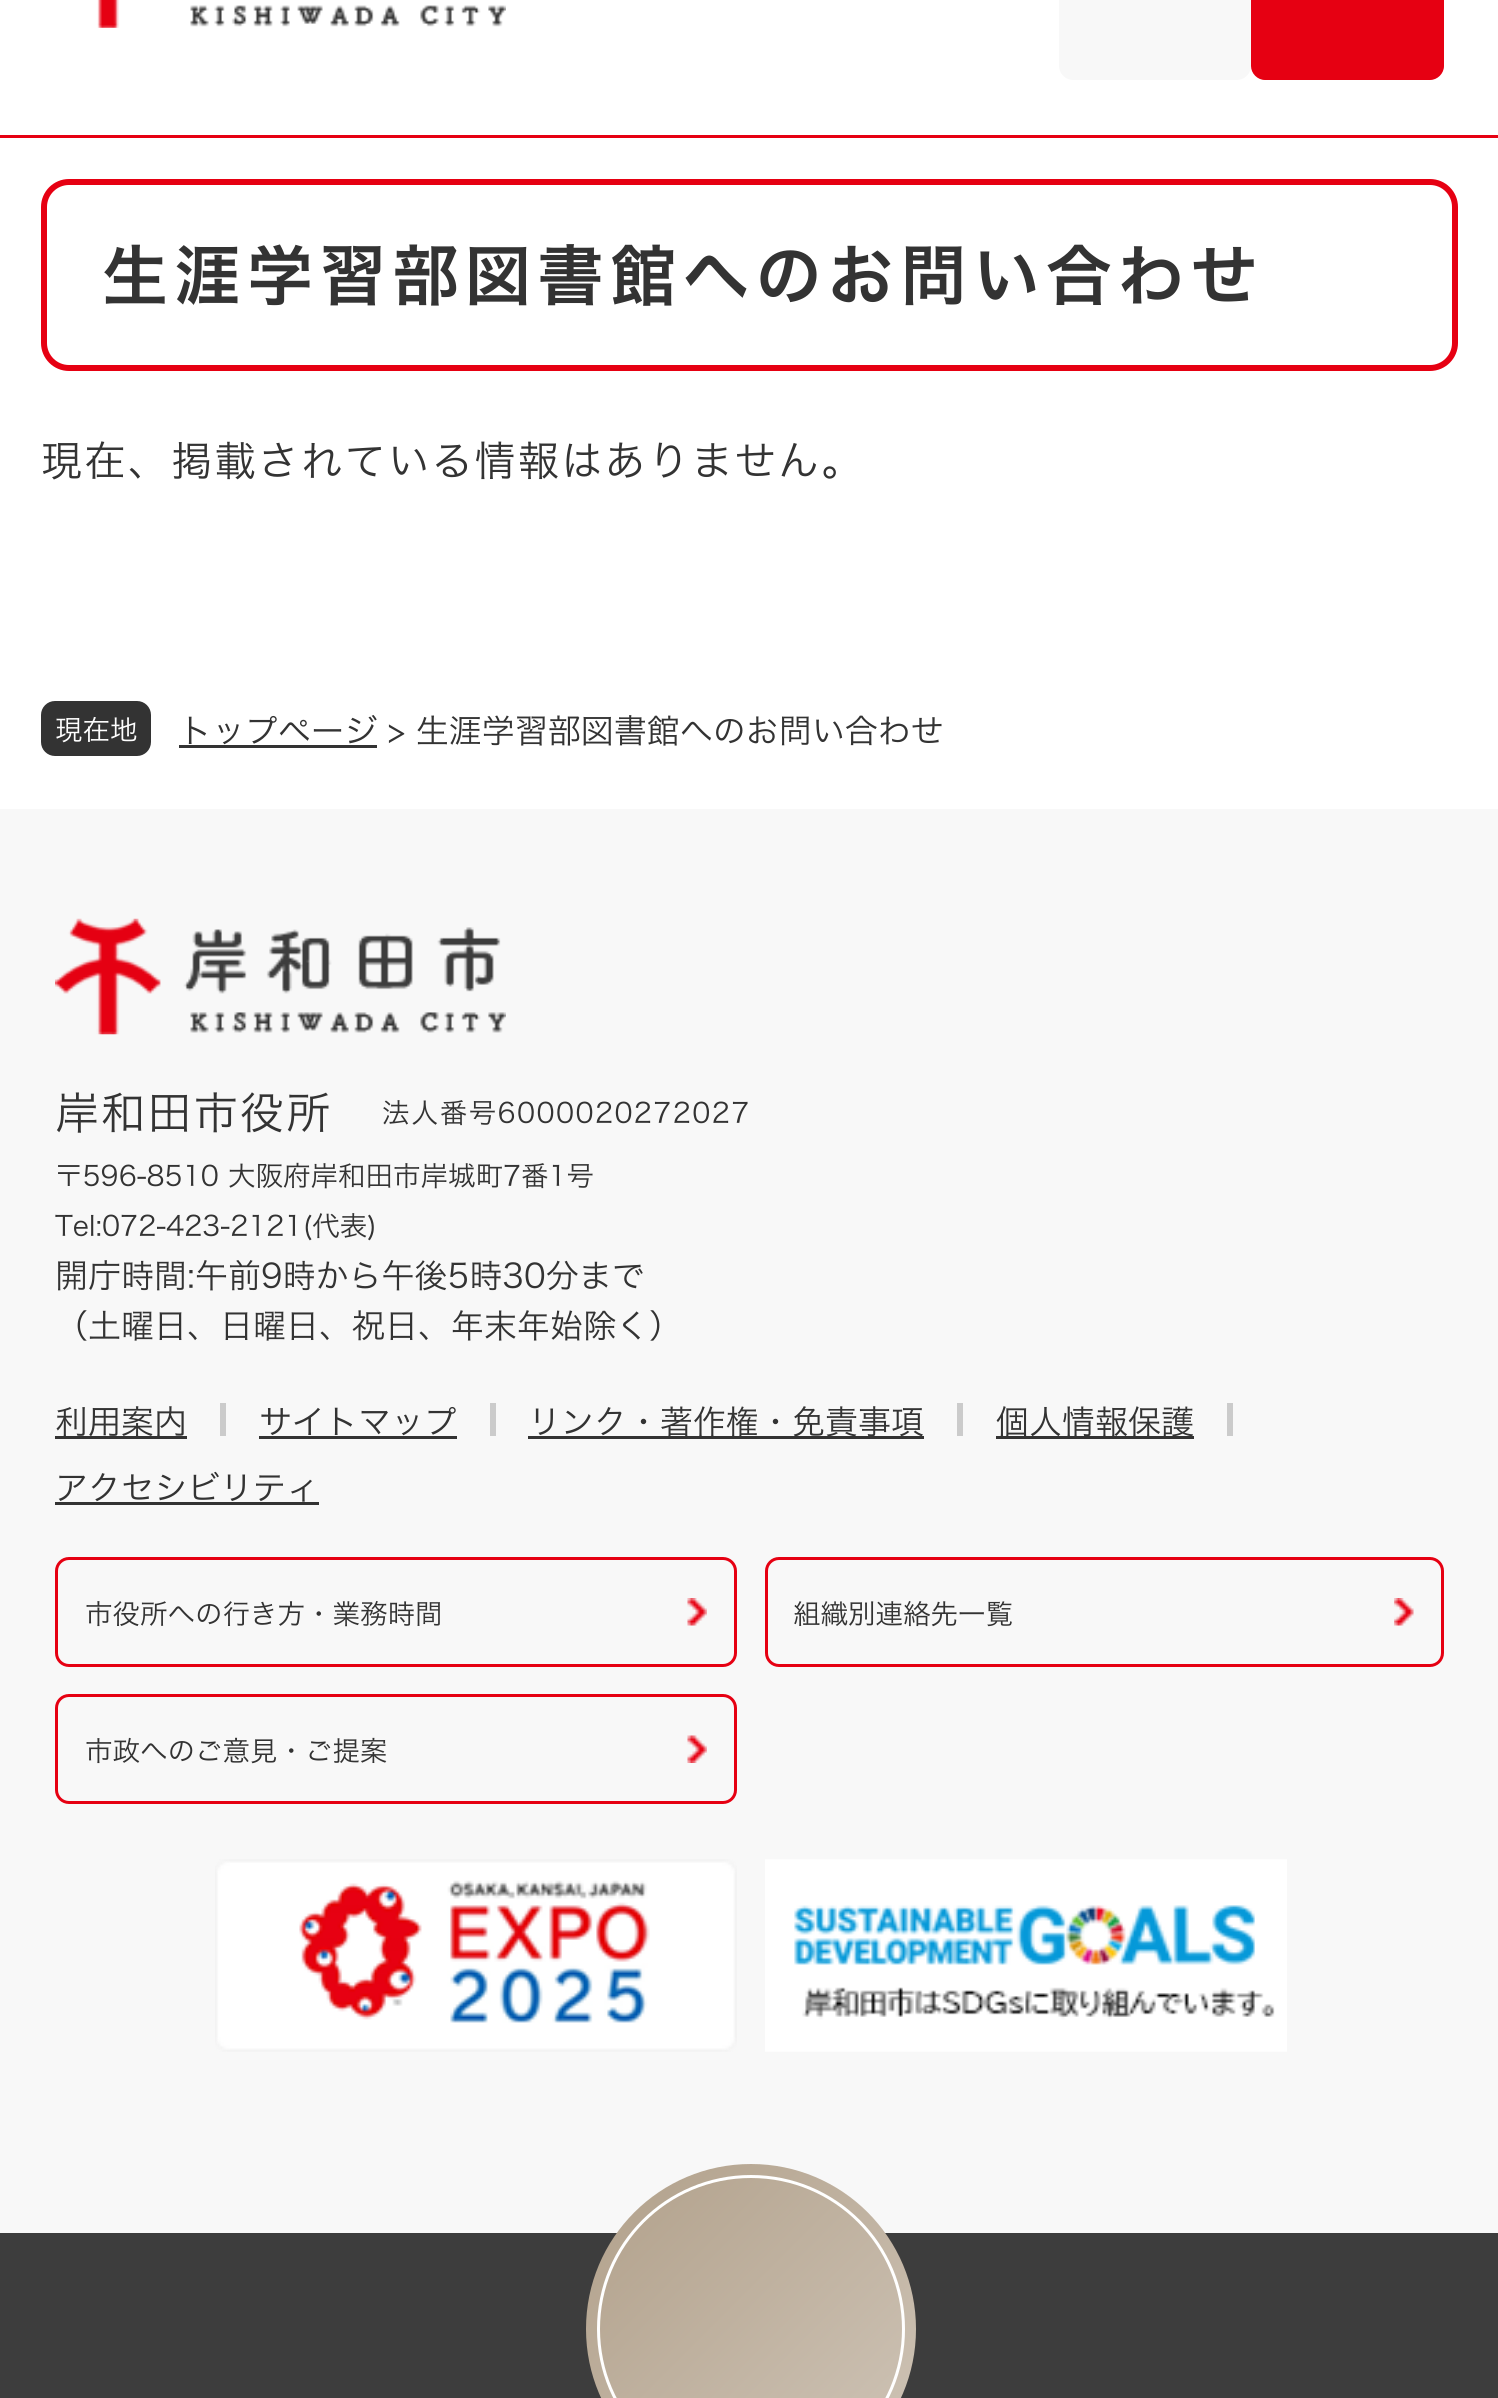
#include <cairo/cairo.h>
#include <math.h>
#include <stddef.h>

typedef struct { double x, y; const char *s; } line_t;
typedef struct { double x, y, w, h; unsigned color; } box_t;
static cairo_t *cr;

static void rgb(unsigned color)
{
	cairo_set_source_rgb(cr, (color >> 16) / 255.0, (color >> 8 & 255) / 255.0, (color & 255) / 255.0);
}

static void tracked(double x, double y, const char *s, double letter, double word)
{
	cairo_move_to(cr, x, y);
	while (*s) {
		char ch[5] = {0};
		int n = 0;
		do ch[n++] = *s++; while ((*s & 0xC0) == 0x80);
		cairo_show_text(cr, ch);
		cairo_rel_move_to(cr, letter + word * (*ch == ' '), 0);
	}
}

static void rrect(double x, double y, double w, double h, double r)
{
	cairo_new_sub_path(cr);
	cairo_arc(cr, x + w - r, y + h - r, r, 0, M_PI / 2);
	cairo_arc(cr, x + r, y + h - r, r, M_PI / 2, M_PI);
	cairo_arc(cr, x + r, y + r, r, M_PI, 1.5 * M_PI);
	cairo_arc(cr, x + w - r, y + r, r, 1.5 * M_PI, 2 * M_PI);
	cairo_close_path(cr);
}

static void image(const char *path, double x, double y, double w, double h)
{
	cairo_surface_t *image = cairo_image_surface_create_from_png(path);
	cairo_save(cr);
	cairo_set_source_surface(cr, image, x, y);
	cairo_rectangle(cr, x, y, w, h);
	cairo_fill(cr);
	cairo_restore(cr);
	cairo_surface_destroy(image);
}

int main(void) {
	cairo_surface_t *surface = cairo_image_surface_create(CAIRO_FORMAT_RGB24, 1498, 2398);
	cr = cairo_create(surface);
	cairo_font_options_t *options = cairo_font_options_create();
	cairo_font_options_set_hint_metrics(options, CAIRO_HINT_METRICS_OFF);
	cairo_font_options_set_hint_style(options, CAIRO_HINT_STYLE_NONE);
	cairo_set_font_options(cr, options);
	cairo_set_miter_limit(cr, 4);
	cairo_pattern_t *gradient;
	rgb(0xffffff);
	cairo_paint(cr);
	rgb(0xe60012);
	cairo_rectangle(cr, 0, 135, 1498, 3);
	cairo_fill(cr);
	image("img/1.png", 97, 0, 409, 28);
	rgb(0xf8f8f8);
	cairo_new_path(cr);
	cairo_move_to(cr, 1059, -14);
	cairo_line_to(cr, 1251, -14);
	cairo_line_to(cr, 1251, 66);
	cairo_curve_to(cr, 1251, 73.5, 1244.5, 80, 1237, 80);
	cairo_line_to(cr, 1073, 80);
	cairo_curve_to(cr, 1065.5, 80, 1059, 73.5, 1059, 66);
	cairo_close_path(cr);
	cairo_fill(cr);
	rgb(0xe60012);
	cairo_new_path(cr);
	cairo_move_to(cr, 1251, -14);
	cairo_line_to(cr, 1444, -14);
	cairo_line_to(cr, 1444, 66);
	cairo_curve_to(cr, 1444, 73.5, 1437.5, 80, 1430, 80);
	cairo_line_to(cr, 1265, 80);
	cairo_curve_to(cr, 1257.5, 80, 1251, 73.5, 1251, 66);
	cairo_close_path(cr);
	cairo_fill(cr);
	{
		static const box_t items[] = {
			{0, 2233, 617, 165, 0x3d3d3d},
			{885, 2233, 613, 165, 0x3d3d3d},
			{0, 809, 1498, 1424, 0xf8f8f8},
		};
		for (size_t i = 0; i < sizeof items / sizeof *items; i++) {
			rgb(items[i].color);
			cairo_rectangle(cr, items[i].x, items[i].y, items[i].w, items[i].h);
			cairo_fill(cr);
		}
	}
	gradient = cairo_pattern_create_linear(916, 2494, 586, 2164);
	cairo_pattern_add_color_stop_rgba(gradient, 0, 0.816, 0.776, 0.725, 1);
	cairo_pattern_add_color_stop_rgba(gradient, 1, 0.694, 0.627, 0.541, 1);
	cairo_set_source(cr, gradient);
	cairo_pattern_destroy(gradient);
	cairo_arc(cr, 751, 2329, 165, 0, 2 * M_PI);
	cairo_fill(cr);
	cairo_arc(cr, 751, 2329, 152.5, 0, 2 * M_PI);
	rgb(0xffffff);
	cairo_set_line_width(cr, 3);
	cairo_stroke(cr);
	rrect(44, 182, 1411, 186, 25);
	rgb(0xe60012);
	cairo_set_line_width(cr, 6);
	cairo_stroke(cr);
	rgb(0x333333);
	rrect(41, 701, 110, 55, 14);
	cairo_fill(cr);
	cairo_rectangle(cr, 179, 745, 198, 3);
	cairo_fill(cr);
	image("img/2.png", 55, 918, 451, 117);
	{
		static const box_t items[] = {
			{55, 1436, 132, 3, 0x333333},
			{220, 1403, 6, 33, 0xcbcbcb},
			{259, 1436, 198, 3, 0x333333},
			{490, 1403, 6, 33, 0xcbcbcb},
			{528, 1436, 396, 3, 0x333333},
			{957, 1403, 6, 33, 0xcbcbcb},
			{996, 1436, 198, 3, 0x333333},
			{1227, 1403, 6, 33, 0xcbcbcb},
			{55, 1502, 264, 3, 0x333333},
		};
		for (size_t i = 0; i < sizeof items / sizeof *items; i++) {
			rgb(items[i].color);
			cairo_rectangle(cr, items[i].x, items[i].y, items[i].w, items[i].h);
			cairo_fill(cr);
		}
	}
	image("img/3.png", 687, 1598, 20, 28);
	rrect(56.5, 1558.5, 679, 107, 12.5);
	rgb(0xe60012);
	cairo_set_line_width(cr, 3);
	cairo_stroke(cr);
	image("img/4.png", 1394, 1598, 20, 28);
	rrect(766.5, 1558.5, 676, 107, 12.5);
	cairo_stroke(cr);
	image("img/5.png", 687, 1735, 20, 28);
	rrect(56.5, 1695.5, 679, 107, 12.5);
	cairo_stroke(cr);
	image("img/6.png", 215, 1859, 522, 193);
	image("img/7.png", 765, 1859, 522, 193);
	cairo_select_font_face(cr, "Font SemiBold", CAIRO_FONT_SLANT_NORMAL, CAIRO_FONT_WEIGHT_NORMAL);
	cairo_set_font_size(cr, 66);
	rgb(0x333333);
	tracked(102, 300, "生涯学習部図書館へのお問い合わせ", 6.6, 0);
	cairo_select_font_face(cr, "Font Light", CAIRO_FONT_SLANT_NORMAL, CAIRO_FONT_WEIGHT_NORMAL);
	cairo_set_font_size(cr, 41.25);
	tracked(41, 476, "現在、掲載されている情報はありません。", 2.1, 0);
	cairo_set_font_size(cr, 27.5);
	rgb(0xffffff);
	cairo_move_to(cr, 55, 740);
	cairo_show_text(cr, "現在地");
	cairo_set_font_size(cr, 33);
	rgb(0x333333);
	cairo_move_to(cr, 179, 743);
	cairo_show_text(cr, "トップページ > 生涯学習部図書館へのお問い合わせ");
	cairo_set_font_size(cr, 44);
	tracked(55, 1129, "岸和田市役所", 2.25, 0);
	cairo_set_font_size(cr, 27.5);
	tracked(382, 1123, "法人番号6000020272027", 1.4, 0);
	cairo_move_to(cr, 55, 1186);
	cairo_show_text(cr, "〒596-8510 大阪府岸和田市岸城町7番1号");
	cairo_move_to(cr, 55, 1236);
	cairo_show_text(cr, "Tel:072-423-2121(代表)");
	cairo_set_font_size(cr, 33);
	{
		static const line_t items[] = {
			{55, 1288, "開庁時間:午前9時から午後5時30分まで"},
			{55, 1338, "（土曜日、日曜日、祝日、年末年始除く）"},
			{55, 1434, "利用案内"},
			{259, 1434, "サイトマップ"},
			{528, 1434, "リンク・著作権・免責事項"},
			{996, 1434, "個人情報保護"},
			{55, 1500, "アクセシビリティ"},
		};
		for (size_t i = 0; i < sizeof items / sizeof *items; i++) {
			cairo_move_to(cr, items[i].x, items[i].y);
			cairo_show_text(cr, items[i].s);
		}
	}
	cairo_set_font_size(cr, 27.5);
	{
		static const line_t items[] = {
			{85, 1624, "市役所への行き方・業務時間"},
			{793, 1624, "組織別連絡先一覧"},
			{85, 1761, "市政へのご意見・ご提案"},
		};
		for (size_t i = 0; i < sizeof items / sizeof *items; i++) {
			cairo_move_to(cr, items[i].x, items[i].y);
			cairo_show_text(cr, items[i].s);
		}
	}
	cairo_surface_write_to_png(surface, "page.png");
	cairo_font_options_destroy(options);
	cairo_destroy(cr);
	cairo_surface_destroy(surface);
	return 0;
}
